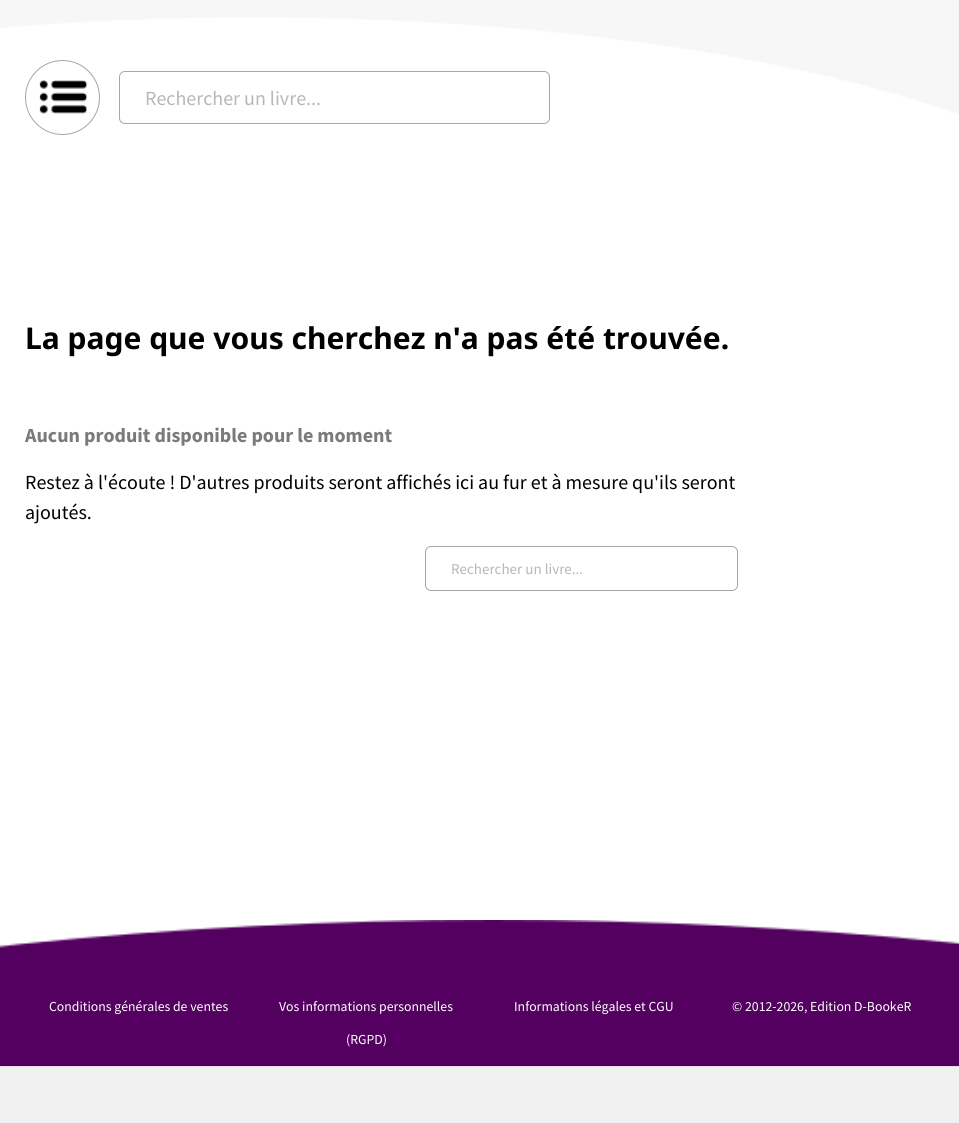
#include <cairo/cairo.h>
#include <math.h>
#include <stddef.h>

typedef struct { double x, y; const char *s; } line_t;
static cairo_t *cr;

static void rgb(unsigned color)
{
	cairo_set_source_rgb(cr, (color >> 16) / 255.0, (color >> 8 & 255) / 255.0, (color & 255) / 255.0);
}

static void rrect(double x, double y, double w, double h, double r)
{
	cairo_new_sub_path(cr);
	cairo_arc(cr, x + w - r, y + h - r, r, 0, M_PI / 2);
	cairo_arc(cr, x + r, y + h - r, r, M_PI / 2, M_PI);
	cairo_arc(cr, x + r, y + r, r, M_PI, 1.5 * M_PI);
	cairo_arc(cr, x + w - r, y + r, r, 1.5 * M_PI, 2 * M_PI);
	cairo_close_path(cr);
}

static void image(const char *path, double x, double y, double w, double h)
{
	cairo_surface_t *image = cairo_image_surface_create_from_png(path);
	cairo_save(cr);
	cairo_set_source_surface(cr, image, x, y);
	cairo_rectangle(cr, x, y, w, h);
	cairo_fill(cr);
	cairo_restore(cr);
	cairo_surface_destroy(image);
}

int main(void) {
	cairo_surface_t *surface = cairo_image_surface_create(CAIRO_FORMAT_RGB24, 959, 1123);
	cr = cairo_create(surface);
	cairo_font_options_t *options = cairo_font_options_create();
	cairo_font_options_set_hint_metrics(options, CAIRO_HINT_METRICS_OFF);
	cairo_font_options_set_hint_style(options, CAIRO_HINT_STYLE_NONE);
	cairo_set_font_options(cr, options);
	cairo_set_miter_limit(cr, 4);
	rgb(0xf1f1f1);
	cairo_paint(cr);
	image("img/1.png", 0, 0, 959, 261);
	cairo_arc(cr, 62.5, 97.5, 37, 0, 2 * M_PI);
	rgb(0xa8a6a6);
	cairo_set_line_width(cr, 1);
	cairo_stroke(cr);
	image("img/2.png", 39, 80, 49, 34);
	rrect(119.5, 71.5, 430, 52, 5.5);
	cairo_stroke(cr);
	rgb(0xffffff);
	cairo_rectangle(cr, 0, 261, 959, 687);
	cairo_fill(cr);
	rrect(425.5, 546.5, 312, 44, 5.5);
	rgb(0xa8a6a6);
	cairo_stroke(cr);
	image("img/3.png", 0, 920, 959, 147);
	cairo_select_font_face(cr, "Source Sans Pro", CAIRO_FONT_SLANT_NORMAL, CAIRO_FONT_WEIGHT_NORMAL);
	cairo_set_font_size(cr, 20);
	rgb(0xb7b7b7);
	cairo_move_to(cr, 145, 105);
	cairo_show_text(cr, "Rechercher un livre...");
	cairo_select_font_face(cr, "Noto Sans", CAIRO_FONT_SLANT_NORMAL, CAIRO_FONT_WEIGHT_BOLD);
	cairo_set_font_size(cr, 30);
	rgb(0x000000);
	cairo_move_to(cr, 25, 349);
	cairo_show_text(cr, "La page que vous cherchez n'a pas été trouvée.");
	cairo_select_font_face(cr, "Source Sans Pro", CAIRO_FONT_SLANT_NORMAL, CAIRO_FONT_WEIGHT_BOLD);
	cairo_set_font_size(cr, 20);
	rgb(0x7a7a7a);
	cairo_move_to(cr, 25, 442);
	cairo_show_text(cr, "Aucun produit disponible pour le moment");
	cairo_select_font_face(cr, "Source Sans Pro", CAIRO_FONT_SLANT_NORMAL, CAIRO_FONT_WEIGHT_NORMAL);
	rgb(0x000000);
	cairo_move_to(cr, 25, 489);
	cairo_show_text(cr, "Restez à l'écoute ! D'autres produits seront affichés ici au fur et à mesure qu'ils seront");
	cairo_move_to(cr, 25, 519);
	cairo_show_text(cr, "ajoutés.");
	cairo_set_font_size(cr, 15);
	rgb(0xb7b7b7);
	cairo_move_to(cr, 451, 574);
	cairo_show_text(cr, "Rechercher un livre...");
	cairo_set_font_size(cr, 13.75);
	rgb(0xffffff);
	{
		static const line_t items[] = {
			{49, 1011, "Conditions générales de ventes"},
			{279, 1011, "Vos informations personnelles"},
			{346, 1044, "(RGPD)"},
			{514, 1011, "Informations légales et CGU"},
			{732, 1011, "© 2012-2026, Edition D-BookeR"},
		};
		for (size_t i = 0; i < sizeof items / sizeof *items; i++) {
			cairo_move_to(cr, items[i].x, items[i].y);
			cairo_show_text(cr, items[i].s);
		}
	}
	cairo_surface_write_to_png(surface, "page.png");
	cairo_font_options_destroy(options);
	cairo_destroy(cr);
	cairo_surface_destroy(surface);
	return 0;
}
